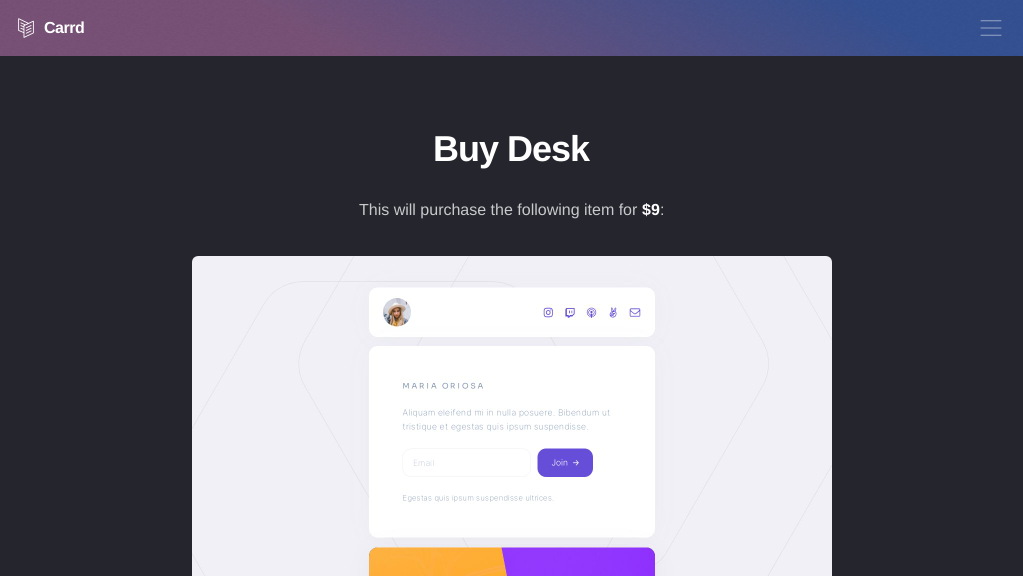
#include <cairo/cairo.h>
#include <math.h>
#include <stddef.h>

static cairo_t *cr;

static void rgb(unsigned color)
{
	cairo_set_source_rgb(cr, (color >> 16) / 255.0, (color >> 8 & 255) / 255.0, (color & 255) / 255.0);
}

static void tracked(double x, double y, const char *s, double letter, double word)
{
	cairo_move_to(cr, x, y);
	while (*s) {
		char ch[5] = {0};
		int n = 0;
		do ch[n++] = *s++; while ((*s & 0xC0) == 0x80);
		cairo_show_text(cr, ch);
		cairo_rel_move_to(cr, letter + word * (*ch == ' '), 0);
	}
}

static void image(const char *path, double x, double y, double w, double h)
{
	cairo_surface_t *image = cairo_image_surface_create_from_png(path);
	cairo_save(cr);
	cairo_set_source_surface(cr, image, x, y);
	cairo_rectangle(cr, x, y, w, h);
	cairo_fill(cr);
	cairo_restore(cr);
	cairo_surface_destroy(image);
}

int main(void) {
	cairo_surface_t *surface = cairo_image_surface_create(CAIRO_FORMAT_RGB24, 1023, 576);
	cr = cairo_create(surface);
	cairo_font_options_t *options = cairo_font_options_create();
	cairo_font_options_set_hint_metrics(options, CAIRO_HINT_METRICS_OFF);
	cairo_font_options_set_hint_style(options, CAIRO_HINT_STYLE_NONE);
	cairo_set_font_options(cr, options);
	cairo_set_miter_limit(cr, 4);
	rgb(0x24252d);
	cairo_paint(cr);
	image("img/1.png", 0, 0, 1023, 56);
	image("img/2.png", 18, 18, 16, 20);
	image("img/3.png", 980, 20, 22, 16);
	image("img/4.png", 192, 256, 640, 320);
	cairo_select_font_face(cr, "Liberation Sans", CAIRO_FONT_SLANT_NORMAL, CAIRO_FONT_WEIGHT_BOLD);
	cairo_set_font_size(cr, 16);
	rgb(0xffffff);
	tracked(44, 33, "Carrd", -0.5, 0);
	cairo_set_font_size(cr, 36);
	tracked(433, 161, "Buy Desk", -1, 0);
	cairo_select_font_face(cr, "Liberation Sans", CAIRO_FONT_SLANT_NORMAL, CAIRO_FONT_WEIGHT_NORMAL);
	cairo_set_font_size(cr, 16);
	rgb(0xc8c9cb);
	cairo_move_to(cr, 359, 215);
	cairo_show_text(cr, "This will purchase the following item for");
	cairo_select_font_face(cr, "Liberation Sans", CAIRO_FONT_SLANT_NORMAL, CAIRO_FONT_WEIGHT_BOLD);
	rgb(0xffffff);
	cairo_move_to(cr, 642, 215);
	cairo_show_text(cr, "$9");
	cairo_select_font_face(cr, "Liberation Sans", CAIRO_FONT_SLANT_NORMAL, CAIRO_FONT_WEIGHT_NORMAL);
	rgb(0xc8c9cb);
	cairo_move_to(cr, 660, 215);
	cairo_show_text(cr, ":");
	cairo_surface_write_to_png(surface, "page.png");
	cairo_font_options_destroy(options);
	cairo_destroy(cr);
	cairo_surface_destroy(surface);
	return 0;
}
